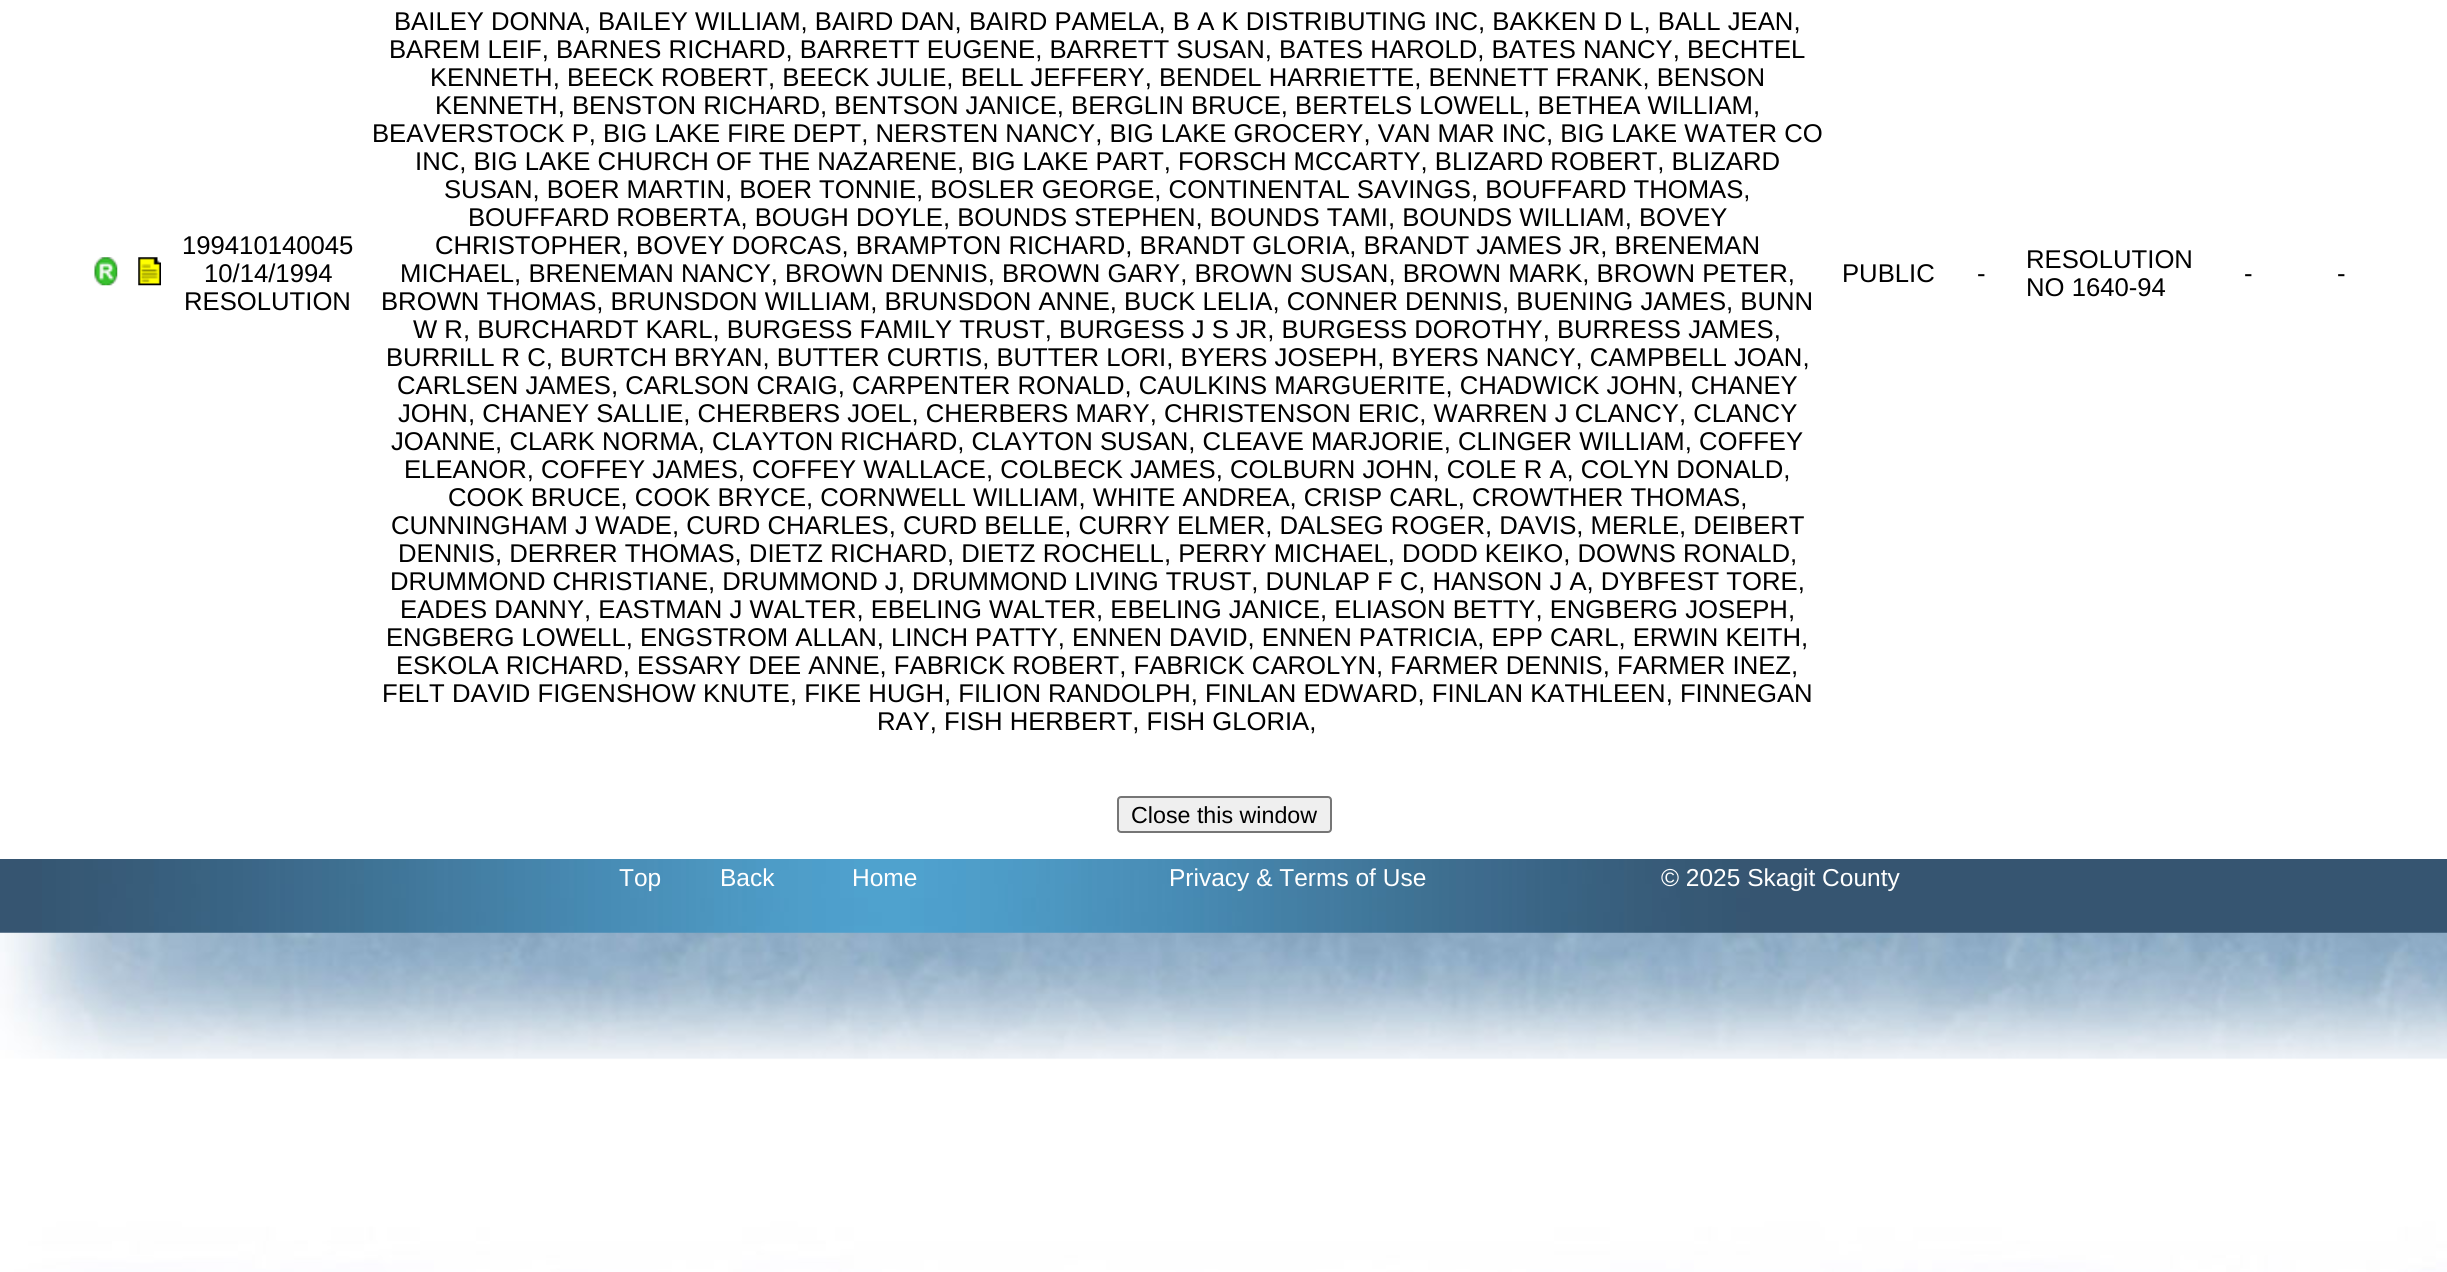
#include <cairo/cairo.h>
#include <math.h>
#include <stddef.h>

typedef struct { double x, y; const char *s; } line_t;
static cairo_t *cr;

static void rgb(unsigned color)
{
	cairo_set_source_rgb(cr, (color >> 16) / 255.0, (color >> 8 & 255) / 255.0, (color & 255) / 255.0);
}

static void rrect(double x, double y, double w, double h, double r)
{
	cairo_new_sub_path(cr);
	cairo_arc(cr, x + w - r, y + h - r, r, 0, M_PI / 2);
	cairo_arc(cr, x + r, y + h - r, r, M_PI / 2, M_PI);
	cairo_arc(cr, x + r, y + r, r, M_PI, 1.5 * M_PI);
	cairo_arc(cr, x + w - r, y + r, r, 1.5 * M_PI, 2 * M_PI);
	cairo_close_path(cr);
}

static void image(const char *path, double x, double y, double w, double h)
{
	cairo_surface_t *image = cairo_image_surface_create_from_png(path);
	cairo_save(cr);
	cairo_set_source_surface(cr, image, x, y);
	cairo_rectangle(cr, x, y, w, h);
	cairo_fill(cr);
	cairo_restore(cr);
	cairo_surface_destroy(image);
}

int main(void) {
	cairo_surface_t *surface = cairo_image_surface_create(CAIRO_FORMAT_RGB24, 2447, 1272);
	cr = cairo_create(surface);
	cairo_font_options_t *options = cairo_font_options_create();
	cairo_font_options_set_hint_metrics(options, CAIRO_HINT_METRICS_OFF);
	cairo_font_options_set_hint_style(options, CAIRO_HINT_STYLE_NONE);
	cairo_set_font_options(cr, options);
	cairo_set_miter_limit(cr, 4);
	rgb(0xffffff);
	cairo_paint(cr);
	image("img/1.png", 0, 932, 2447, 340);
	image("img/2.png", 94, 257, 24, 29);
	image("img/3.png", 138, 257, 23, 29);
	rgb(0xefefef);
	rrect(1118, 797, 213, 35, 3);
	cairo_fill_preserve(cr);
	rgb(0x767676);
	cairo_stroke(cr);
	image("img/4.png", 0, 859, 2447, 74);
	cairo_select_font_face(cr, "Liberation Sans", CAIRO_FONT_SLANT_NORMAL, CAIRO_FONT_WEIGHT_NORMAL);
	cairo_set_font_size(cr, 25.67);
	rgb(0x000000);
	{
		static const line_t items[] = {
			{182, 254, "199410140045"},
			{204, 282, "10/14/1994"},
			{184, 310, "RESOLUTION"},
			{394, 30, "BAILEY DONNA, BAILEY WILLIAM, BAIRD DAN, BAIRD PAMELA, B A K DISTRIBUTING INC, BAKKEN D L, BALL JEAN,"},
			{389, 58, "BAREM LEIF, BARNES RICHARD, BARRETT EUGENE, BARRETT SUSAN, BATES HAROLD, BATES NANCY, BECHTEL"},
			{430, 86, "KENNETH, BEECK ROBERT, BEECK JULIE, BELL JEFFERY, BENDEL HARRIETTE, BENNETT FRANK, BENSON"},
			{435, 114, "KENNETH, BENSTON RICHARD, BENTSON JANICE, BERGLIN BRUCE, BERTELS LOWELL, BETHEA WILLIAM,"},
			{372, 142, "BEAVERSTOCK P, BIG LAKE FIRE DEPT, NERSTEN NANCY, BIG LAKE GROCERY, VAN MAR INC, BIG LAKE WATER CO"},
			{415, 170, "INC, BIG LAKE CHURCH OF THE NAZARENE, BIG LAKE PART, FORSCH MCCARTY, BLIZARD ROBERT, BLIZARD"},
			{444, 198, "SUSAN, BOER MARTIN, BOER TONNIE, BOSLER GEORGE, CONTINENTAL SAVINGS, BOUFFARD THOMAS,"},
			{468, 226, "BOUFFARD ROBERTA, BOUGH DOYLE, BOUNDS STEPHEN, BOUNDS TAMI, BOUNDS WILLIAM, BOVEY"},
			{435, 254, "CHRISTOPHER, BOVEY DORCAS, BRAMPTON RICHARD, BRANDT GLORIA, BRANDT JAMES JR, BRENEMAN"},
			{400, 282, "MICHAEL, BRENEMAN NANCY, BROWN DENNIS, BROWN GARY, BROWN SUSAN, BROWN MARK, BROWN PETER,"},
			{381, 310, "BROWN THOMAS, BRUNSDON WILLIAM, BRUNSDON ANNE, BUCK LELIA, CONNER DENNIS, BUENING JAMES, BUNN"},
			{413, 338, "W R, BURCHARDT KARL, BURGESS FAMILY TRUST, BURGESS J S JR, BURGESS DOROTHY, BURRESS JAMES,"},
			{386, 366, "BURRILL R C, BURTCH BRYAN, BUTTER CURTIS, BUTTER LORI, BYERS JOSEPH, BYERS NANCY, CAMPBELL JOAN,"},
			{397, 394, "CARLSEN JAMES, CARLSON CRAIG, CARPENTER RONALD, CAULKINS MARGUERITE, CHADWICK JOHN, CHANEY"},
			{398, 422, "JOHN, CHANEY SALLIE, CHERBERS JOEL, CHERBERS MARY, CHRISTENSON ERIC, WARREN J CLANCY, CLANCY"},
			{391, 450, "JOANNE, CLARK NORMA, CLAYTON RICHARD, CLAYTON SUSAN, CLEAVE MARJORIE, CLINGER WILLIAM, COFFEY"},
			{404, 478, "ELEANOR, COFFEY JAMES, COFFEY WALLACE, COLBECK JAMES, COLBURN JOHN, COLE R A, COLYN DONALD,"},
			{448, 506, "COOK BRUCE, COOK BRYCE, CORNWELL WILLIAM, WHITE ANDREA, CRISP CARL, CROWTHER THOMAS,"},
			{391, 534, "CUNNINGHAM J WADE, CURD CHARLES, CURD BELLE, CURRY ELMER, DALSEG ROGER, DAVIS, MERLE, DEIBERT"},
			{398, 562, "DENNIS, DERRER THOMAS, DIETZ RICHARD, DIETZ ROCHELL, PERRY MICHAEL, DODD KEIKO, DOWNS RONALD,"},
			{390, 590, "DRUMMOND CHRISTIANE, DRUMMOND J, DRUMMOND LIVING TRUST, DUNLAP F C, HANSON J A, DYBFEST TORE,"},
			{400, 618, "EADES DANNY, EASTMAN J WALTER, EBELING WALTER, EBELING JANICE, ELIASON BETTY, ENGBERG JOSEPH,"},
			{386, 646, "ENGBERG LOWELL, ENGSTROM ALLAN, LINCH PATTY, ENNEN DAVID, ENNEN PATRICIA, EPP CARL, ERWIN KEITH,"},
			{396, 674, "ESKOLA RICHARD, ESSARY DEE ANNE, FABRICK ROBERT, FABRICK CAROLYN, FARMER DENNIS, FARMER INEZ,"},
			{382, 702, "FELT DAVID FIGENSHOW KNUTE, FIKE HUGH, FILION RANDOLPH, FINLAN EDWARD, FINLAN KATHLEEN, FINNEGAN"},
			{877, 730, "RAY, FISH HERBERT, FISH GLORIA,"},
			{1842, 282, "PUBLIC"},
			{1977, 282, "-"},
			{2026, 268, "RESOLUTION"},
			{2026, 296, "NO 1640-94"},
			{2244, 282, "-"},
			{2337, 282, "-"},
		};
		for (size_t i = 0; i < sizeof items / sizeof *items; i++) {
			cairo_move_to(cr, items[i].x, items[i].y);
			cairo_show_text(cr, items[i].s);
		}
	}
	cairo_set_font_size(cr, 23.25);
	cairo_move_to(cr, 1131, 823);
	cairo_show_text(cr, "Close this window");
	cairo_set_font_size(cr, 24.5);
	rgb(0xffffff);
	{
		static const line_t items[] = {
			{619, 886, "Top"},
			{720, 886, "Back"},
			{852, 886, "Home"},
			{1169, 886, "Privacy & Terms of Use"},
			{1661, 886, "© 2025 Skagit County"},
		};
		for (size_t i = 0; i < sizeof items / sizeof *items; i++) {
			cairo_move_to(cr, items[i].x, items[i].y);
			cairo_show_text(cr, items[i].s);
		}
	}
	cairo_surface_write_to_png(surface, "page.png");
	cairo_font_options_destroy(options);
	cairo_destroy(cr);
	cairo_surface_destroy(surface);
	return 0;
}
